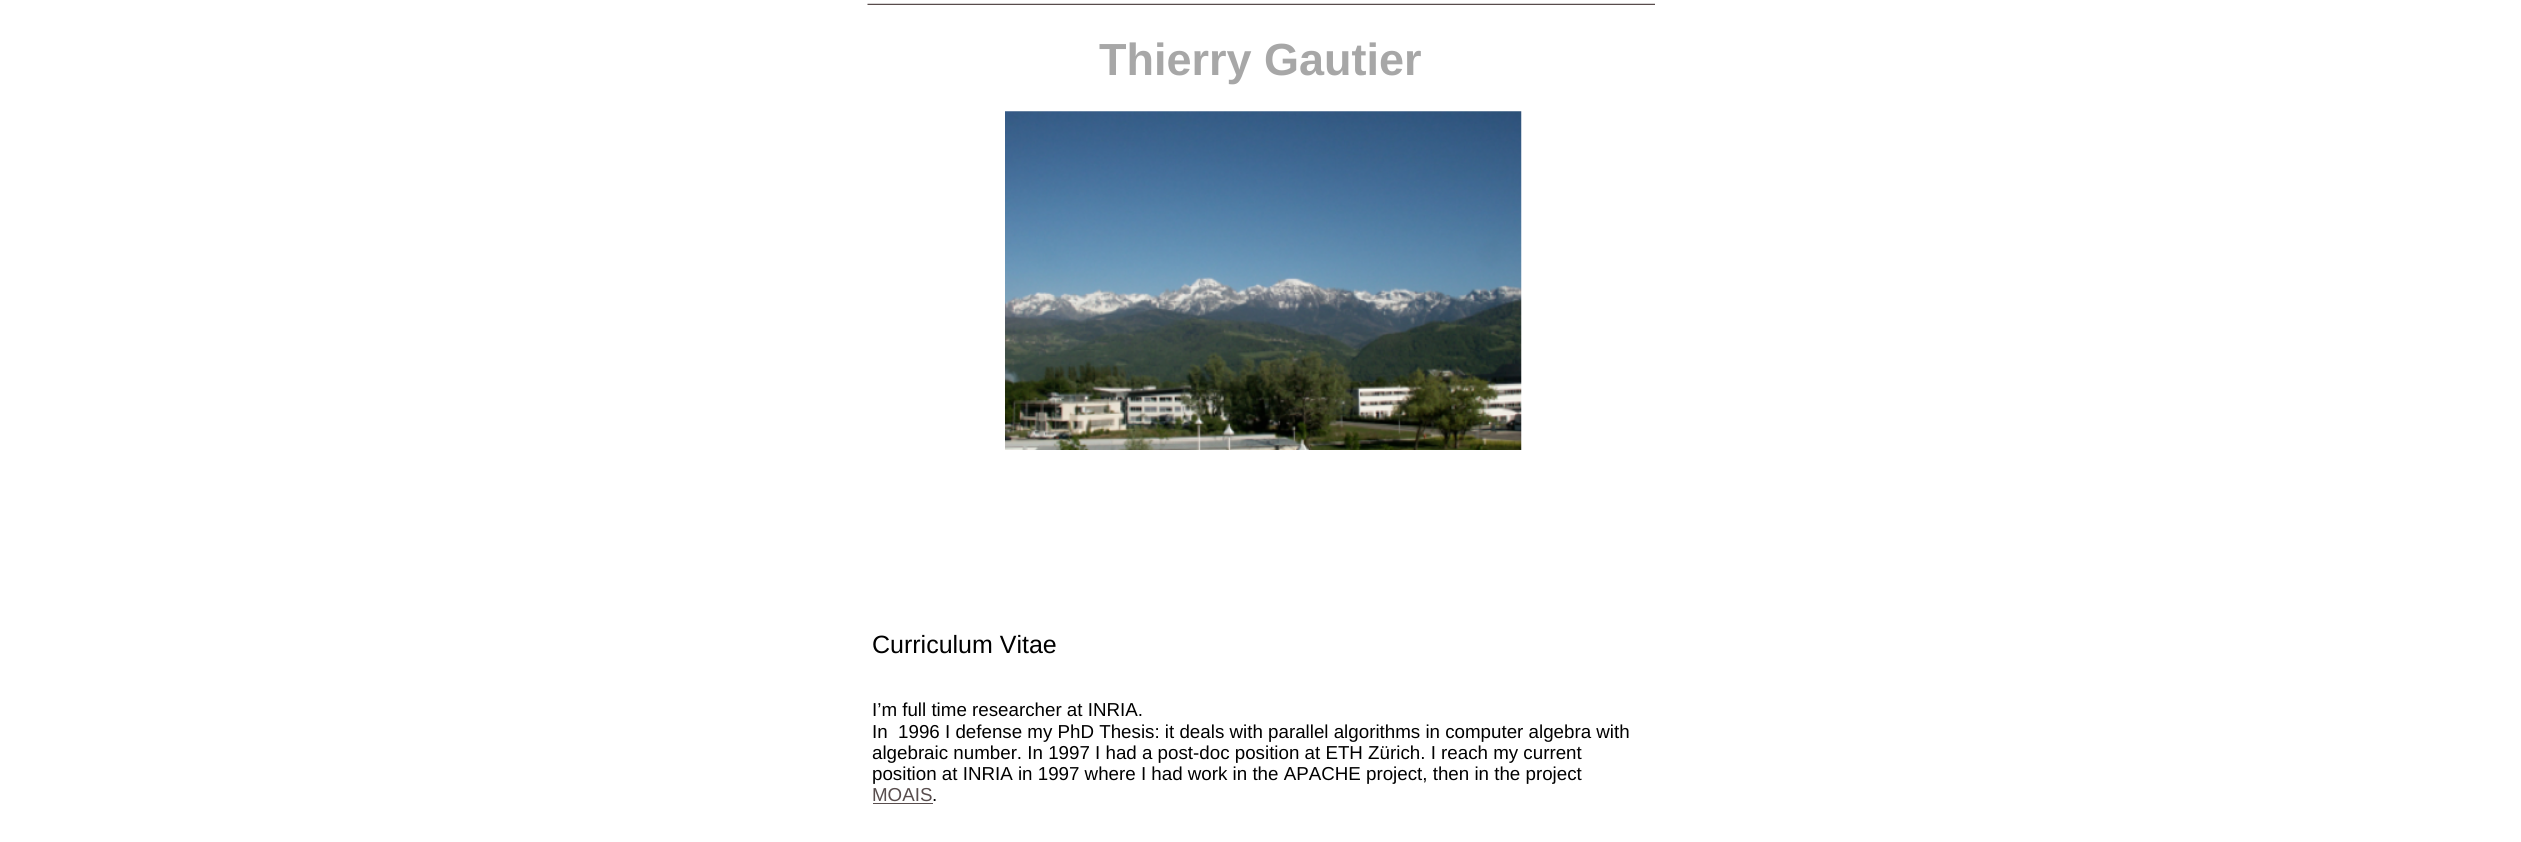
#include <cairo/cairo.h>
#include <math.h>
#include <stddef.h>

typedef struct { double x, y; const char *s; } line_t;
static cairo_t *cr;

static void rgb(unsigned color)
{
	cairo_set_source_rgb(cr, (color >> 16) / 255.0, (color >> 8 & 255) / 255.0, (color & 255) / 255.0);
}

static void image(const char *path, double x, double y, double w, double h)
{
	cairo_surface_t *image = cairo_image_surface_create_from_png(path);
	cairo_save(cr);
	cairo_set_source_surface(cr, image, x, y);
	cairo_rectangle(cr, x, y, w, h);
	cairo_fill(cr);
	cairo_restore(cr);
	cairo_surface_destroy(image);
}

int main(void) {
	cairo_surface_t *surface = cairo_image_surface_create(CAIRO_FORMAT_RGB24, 2521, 842);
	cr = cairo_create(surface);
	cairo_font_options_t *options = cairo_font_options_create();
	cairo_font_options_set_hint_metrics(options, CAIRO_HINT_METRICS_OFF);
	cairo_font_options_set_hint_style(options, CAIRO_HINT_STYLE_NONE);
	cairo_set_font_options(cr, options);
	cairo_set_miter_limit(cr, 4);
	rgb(0xffffff);
	cairo_paint(cr);
	image("img/1.png", 867, 3, 788, 2);
	image("img/2.png", 1005, 111, 517, 339);
	rgb(0x584d4d);
	cairo_rectangle(cr, 873, 803, 60, 1);
	cairo_fill(cr);
	cairo_select_font_face(cr, "Liberation Sans", CAIRO_FONT_SLANT_NORMAL, CAIRO_FONT_WEIGHT_BOLD);
	cairo_set_font_size(cr, 45);
	rgb(0xa7a7a7);
	cairo_move_to(cr, 1099, 75);
	cairo_show_text(cr, "Thierry Gautier");
	cairo_select_font_face(cr, "Liberation Sans", CAIRO_FONT_SLANT_NORMAL, CAIRO_FONT_WEIGHT_NORMAL);
	cairo_set_font_size(cr, 25);
	rgb(0x000000);
	cairo_move_to(cr, 872, 653);
	cairo_show_text(cr, "Curriculum Vitae");
	cairo_set_font_size(cr, 18.75);
	{
		static const line_t items[] = {
			{872, 716, "I’m full time researcher at INRIA."},
			{872, 738, "In  1996 I defense my PhD Thesis: it deals with parallel algorithms in computer algebra with"},
			{872, 759, "algebraic number. In 1997 I had a post-doc position at ETH Zürich. I reach my current"},
			{872, 780, "position at INRIA in 1997 where I had work in the APACHE project, then in the project"},
		};
		for (size_t i = 0; i < sizeof items / sizeof *items; i++) {
			cairo_move_to(cr, items[i].x, items[i].y);
			cairo_show_text(cr, items[i].s);
		}
	}
	rgb(0x584d4d);
	cairo_move_to(cr, 872, 801);
	cairo_show_text(cr, "MOAIS");
	rgb(0x000000);
	cairo_move_to(cr, 932, 801);
	cairo_show_text(cr, ".");
	cairo_surface_write_to_png(surface, "page.png");
	cairo_font_options_destroy(options);
	cairo_destroy(cr);
	cairo_surface_destroy(surface);
	return 0;
}
